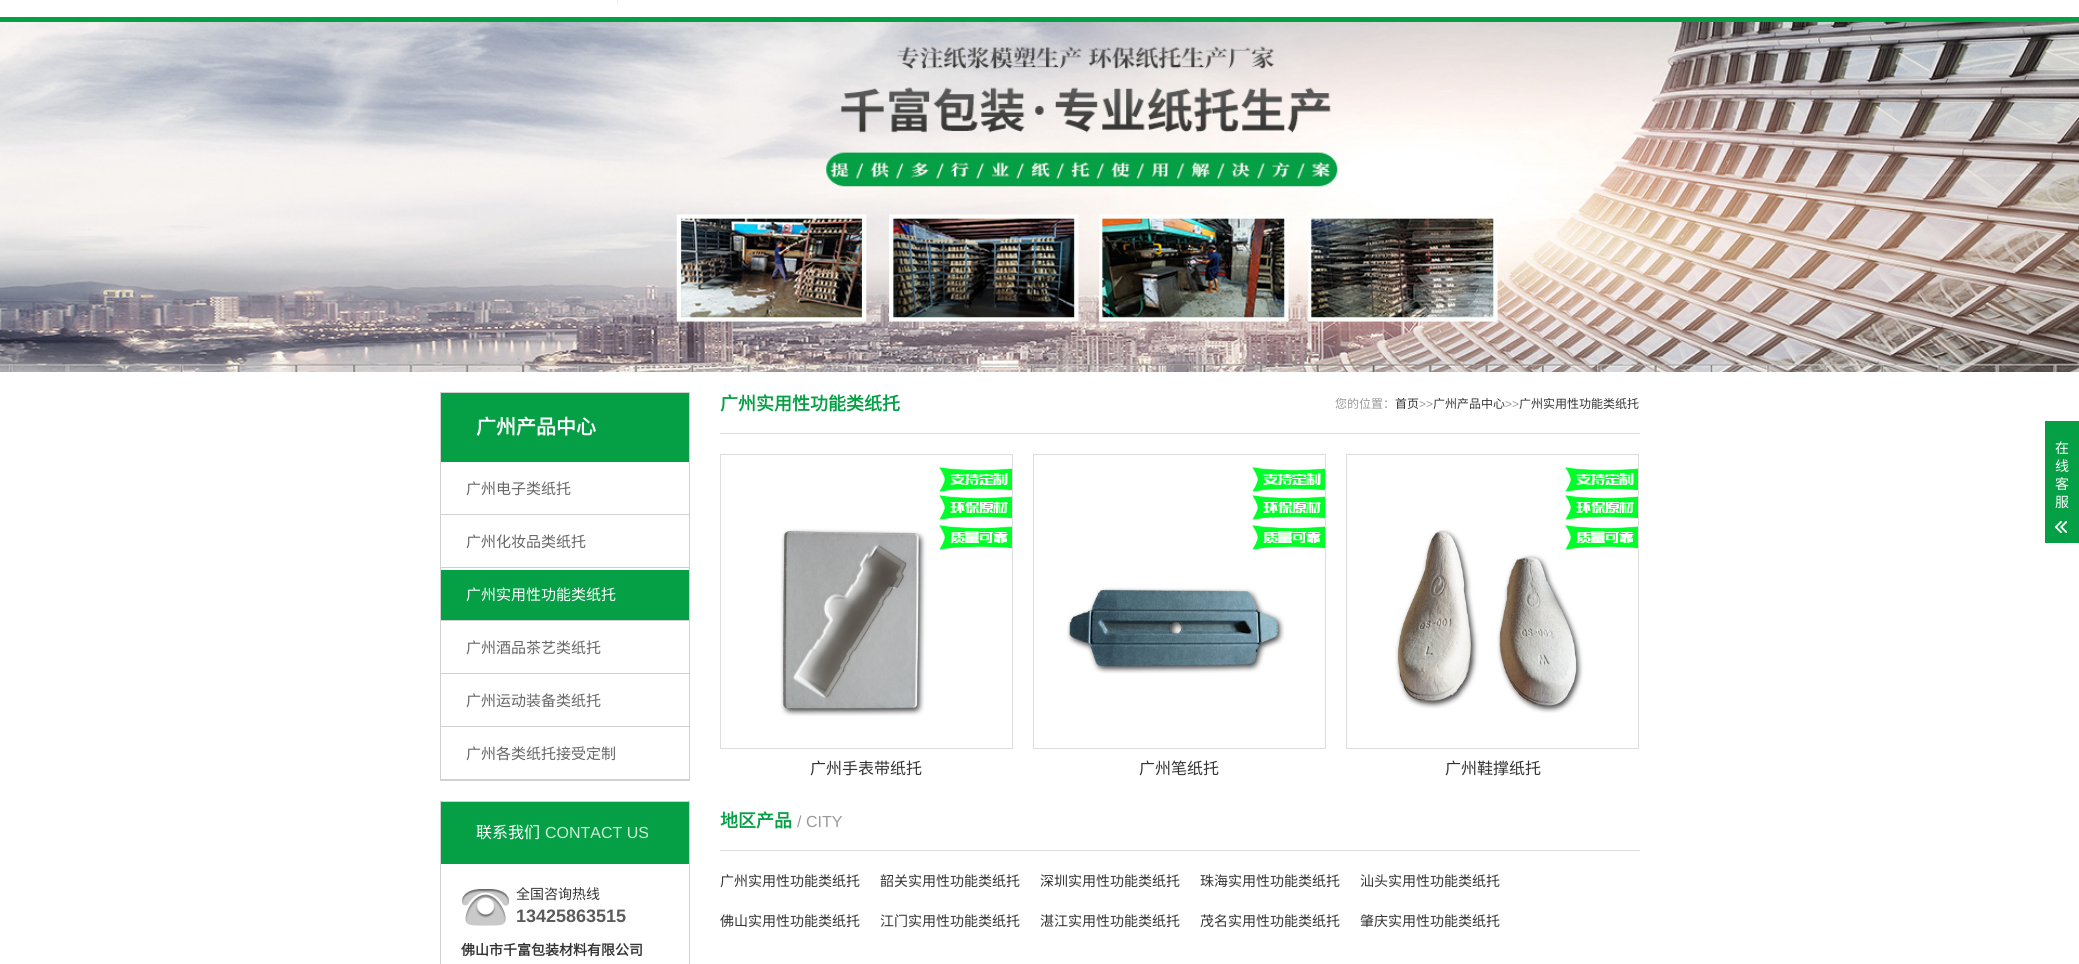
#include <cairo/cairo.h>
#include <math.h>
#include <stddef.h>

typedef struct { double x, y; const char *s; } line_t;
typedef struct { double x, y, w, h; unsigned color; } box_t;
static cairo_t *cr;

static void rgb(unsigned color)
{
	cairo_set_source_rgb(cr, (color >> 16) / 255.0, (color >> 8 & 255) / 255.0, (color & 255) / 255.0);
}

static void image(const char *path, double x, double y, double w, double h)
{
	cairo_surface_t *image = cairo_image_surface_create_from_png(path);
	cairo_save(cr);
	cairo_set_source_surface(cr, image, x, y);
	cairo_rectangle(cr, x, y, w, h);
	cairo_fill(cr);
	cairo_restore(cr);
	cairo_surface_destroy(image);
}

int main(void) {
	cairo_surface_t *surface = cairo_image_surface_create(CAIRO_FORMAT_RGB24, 2079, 964);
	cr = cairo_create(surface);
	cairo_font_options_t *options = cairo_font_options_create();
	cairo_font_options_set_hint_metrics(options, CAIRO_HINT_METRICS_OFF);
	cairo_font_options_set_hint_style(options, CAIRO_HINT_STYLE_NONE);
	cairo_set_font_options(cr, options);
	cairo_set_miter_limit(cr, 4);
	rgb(0xffffff);
	cairo_paint(cr);
	rgb(0x05a045);
	cairo_rectangle(cr, 0, 17, 2079, 5);
	cairo_fill(cr);
	image("img/1.png", 617, 0, 1, 7);
	image("img/2.png", 0, 22, 2079, 350);
	cairo_rectangle(cr, 440.5, 392.5, 249, 388);
	rgb(0xd1d1d1);
	cairo_set_line_width(cr, 1);
	cairo_stroke(cr);
	{
		static const box_t items[] = {
			{441, 393, 248, 69, 0x05a045},
			{441, 514, 248, 1, 0xd1d1d1},
			{441, 567, 248, 1, 0xd1d1d1},
			{441, 620, 248, 1, 0xd1d1d1},
			{441, 570, 248, 50, 0x05a045},
			{441, 673, 248, 1, 0xd1d1d1},
			{441, 726, 248, 1, 0xd1d1d1},
			{441, 779, 248, 1, 0xd1d1d1},
		};
		for (size_t i = 0; i < sizeof items / sizeof *items; i++) {
			rgb(items[i].color);
			cairo_rectangle(cr, items[i].x, items[i].y, items[i].w, items[i].h);
			cairo_fill(cr);
		}
	}
	cairo_rectangle(cr, 440.5, 801.5, 249, 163);
	cairo_stroke(cr);
	rgb(0x05a045);
	cairo_rectangle(cr, 441, 802, 248, 62);
	cairo_fill(cr);
	image("img/3.png", 462, 889, 47, 37);
	rgb(0xdddddd);
	cairo_rectangle(cr, 720, 433, 920, 1);
	cairo_fill(cr);
	cairo_rectangle(cr, 720.5, 454.5, 292, 294);
	cairo_stroke(cr);
	image("img/4.png", 780, 467, 232, 249);
	cairo_rectangle(cr, 1033.5, 454.5, 292, 294);
	cairo_stroke(cr);
	image("img/5.png", 1067, 467, 258, 207);
	cairo_rectangle(cr, 1346.5, 454.5, 292, 294);
	cairo_stroke(cr);
	image("img/6.png", 1395, 467, 243, 246);
	cairo_rectangle(cr, 720, 850, 920, 1);
	cairo_fill(cr);
	rgb(0x05a045);
	cairo_rectangle(cr, 2045, 421, 34, 122);
	cairo_fill(cr);
	image("img/7.png", 2055, 521, 12, 12);
	cairo_select_font_face(cr, "Noto Sans CJK SC", CAIRO_FONT_SLANT_NORMAL, CAIRO_FONT_WEIGHT_BOLD);
	cairo_set_font_size(cr, 20);
	rgb(0xffffff);
	cairo_move_to(cr, 476, 434);
	cairo_show_text(cr, "广州产品中心");
	cairo_select_font_face(cr, "Noto Sans CJK SC", CAIRO_FONT_SLANT_NORMAL, CAIRO_FONT_WEIGHT_NORMAL);
	cairo_set_font_size(cr, 15);
	rgb(0x666666);
	cairo_move_to(cr, 466, 494);
	cairo_show_text(cr, "广州电子类纸托");
	cairo_move_to(cr, 466, 547);
	cairo_show_text(cr, "广州化妆品类纸托");
	rgb(0xffffff);
	cairo_move_to(cr, 466, 600);
	cairo_show_text(cr, "广州实用性功能类纸托");
	rgb(0x666666);
	{
		static const line_t items[] = {
			{466, 653, "广州酒品茶艺类纸托"},
			{466, 706, "广州运动装备类纸托"},
			{466, 759, "广州各类纸托接受定制"},
		};
		for (size_t i = 0; i < sizeof items / sizeof *items; i++) {
			cairo_move_to(cr, items[i].x, items[i].y);
			cairo_show_text(cr, items[i].s);
		}
	}
	cairo_set_font_size(cr, 16);
	rgb(0xffffff);
	cairo_move_to(cr, 476, 838);
	cairo_show_text(cr, "联系我们");
	cairo_select_font_face(cr, "Liberation Sans", CAIRO_FONT_SLANT_NORMAL, CAIRO_FONT_WEIGHT_NORMAL);
	rgb(0xcdecda);
	cairo_move_to(cr, 545, 838);
	cairo_show_text(cr, "CONTACT US");
	cairo_select_font_face(cr, "Noto Sans CJK SC", CAIRO_FONT_SLANT_NORMAL, CAIRO_FONT_WEIGHT_NORMAL);
	cairo_set_font_size(cr, 14);
	rgb(0x333333);
	cairo_move_to(cr, 516, 899);
	cairo_show_text(cr, "全国咨询热线");
	cairo_select_font_face(cr, "Liberation Sans", CAIRO_FONT_SLANT_NORMAL, CAIRO_FONT_WEIGHT_BOLD);
	cairo_set_font_size(cr, 18);
	rgb(0x5b5b5b);
	cairo_move_to(cr, 516, 922);
	cairo_show_text(cr, "13425863515");
	cairo_select_font_face(cr, "Noto Sans CJK SC", CAIRO_FONT_SLANT_NORMAL, CAIRO_FONT_WEIGHT_BOLD);
	cairo_set_font_size(cr, 14);
	rgb(0x333333);
	cairo_move_to(cr, 461, 955);
	cairo_show_text(cr, "佛山市千富包装材料有限公司");
	cairo_set_font_size(cr, 18);
	rgb(0x05a045);
	cairo_move_to(cr, 720, 410);
	cairo_show_text(cr, "广州实用性功能类纸托");
	cairo_select_font_face(cr, "Noto Sans CJK SC", CAIRO_FONT_SLANT_NORMAL, CAIRO_FONT_WEIGHT_NORMAL);
	cairo_set_font_size(cr, 12);
	rgb(0x999999);
	cairo_move_to(cr, 1335, 408);
	cairo_show_text(cr, "您的位置：");
	rgb(0x333333);
	cairo_move_to(cr, 1395, 408);
	cairo_show_text(cr, "首页");
	cairo_select_font_face(cr, "Liberation Sans", CAIRO_FONT_SLANT_NORMAL, CAIRO_FONT_WEIGHT_NORMAL);
	rgb(0x999999);
	cairo_move_to(cr, 1419, 408);
	cairo_show_text(cr, ">>");
	cairo_select_font_face(cr, "Noto Sans CJK SC", CAIRO_FONT_SLANT_NORMAL, CAIRO_FONT_WEIGHT_NORMAL);
	rgb(0x333333);
	cairo_move_to(cr, 1433, 408);
	cairo_show_text(cr, "广州产品中心");
	cairo_select_font_face(cr, "Liberation Sans", CAIRO_FONT_SLANT_NORMAL, CAIRO_FONT_WEIGHT_NORMAL);
	rgb(0x999999);
	cairo_move_to(cr, 1505, 408);
	cairo_show_text(cr, ">>");
	cairo_select_font_face(cr, "Noto Sans CJK SC", CAIRO_FONT_SLANT_NORMAL, CAIRO_FONT_WEIGHT_NORMAL);
	rgb(0x333333);
	cairo_move_to(cr, 1519, 408);
	cairo_show_text(cr, "广州实用性功能类纸托");
	cairo_set_font_size(cr, 16);
	{
		static const line_t items[] = {
			{810, 774, "广州手表带纸托"},
			{1139, 774, "广州笔纸托"},
			{1445, 774, "广州鞋撑纸托"},
		};
		for (size_t i = 0; i < sizeof items / sizeof *items; i++) {
			cairo_move_to(cr, items[i].x, items[i].y);
			cairo_show_text(cr, items[i].s);
		}
	}
	cairo_select_font_face(cr, "Noto Sans CJK SC", CAIRO_FONT_SLANT_NORMAL, CAIRO_FONT_WEIGHT_BOLD);
	cairo_set_font_size(cr, 18);
	rgb(0x05a045);
	cairo_move_to(cr, 720, 827);
	cairo_show_text(cr, "地区产品");
	cairo_select_font_face(cr, "Liberation Sans", CAIRO_FONT_SLANT_NORMAL, CAIRO_FONT_WEIGHT_NORMAL);
	cairo_set_font_size(cr, 16);
	rgb(0x999999);
	cairo_move_to(cr, 797, 827);
	cairo_show_text(cr, "/ CITY");
	cairo_select_font_face(cr, "Noto Sans CJK SC", CAIRO_FONT_SLANT_NORMAL, CAIRO_FONT_WEIGHT_NORMAL);
	cairo_set_font_size(cr, 14);
	rgb(0x333333);
	{
		static const line_t items[] = {
			{720, 886, "广州实用性功能类纸托"},
			{880, 886, "韶关实用性功能类纸托"},
			{1040, 886, "深圳实用性功能类纸托"},
			{1200, 886, "珠海实用性功能类纸托"},
			{1360, 886, "汕头实用性功能类纸托"},
			{720, 926, "佛山实用性功能类纸托"},
			{880, 926, "江门实用性功能类纸托"},
			{1040, 926, "湛江实用性功能类纸托"},
			{1200, 926, "茂名实用性功能类纸托"},
			{1360, 926, "肇庆实用性功能类纸托"},
		};
		for (size_t i = 0; i < sizeof items / sizeof *items; i++) {
			cairo_move_to(cr, items[i].x, items[i].y);
			cairo_show_text(cr, items[i].s);
		}
	}
	rgb(0xffffff);
	{
		static const line_t items[] = {
			{2055, 453, "在"},
			{2055, 471, "线"},
			{2055, 489, "客"},
			{2055, 507, "服"},
		};
		for (size_t i = 0; i < sizeof items / sizeof *items; i++) {
			cairo_move_to(cr, items[i].x, items[i].y);
			cairo_show_text(cr, items[i].s);
		}
	}
	cairo_surface_write_to_png(surface, "page.png");
	cairo_font_options_destroy(options);
	cairo_destroy(cr);
	cairo_surface_destroy(surface);
	return 0;
}
